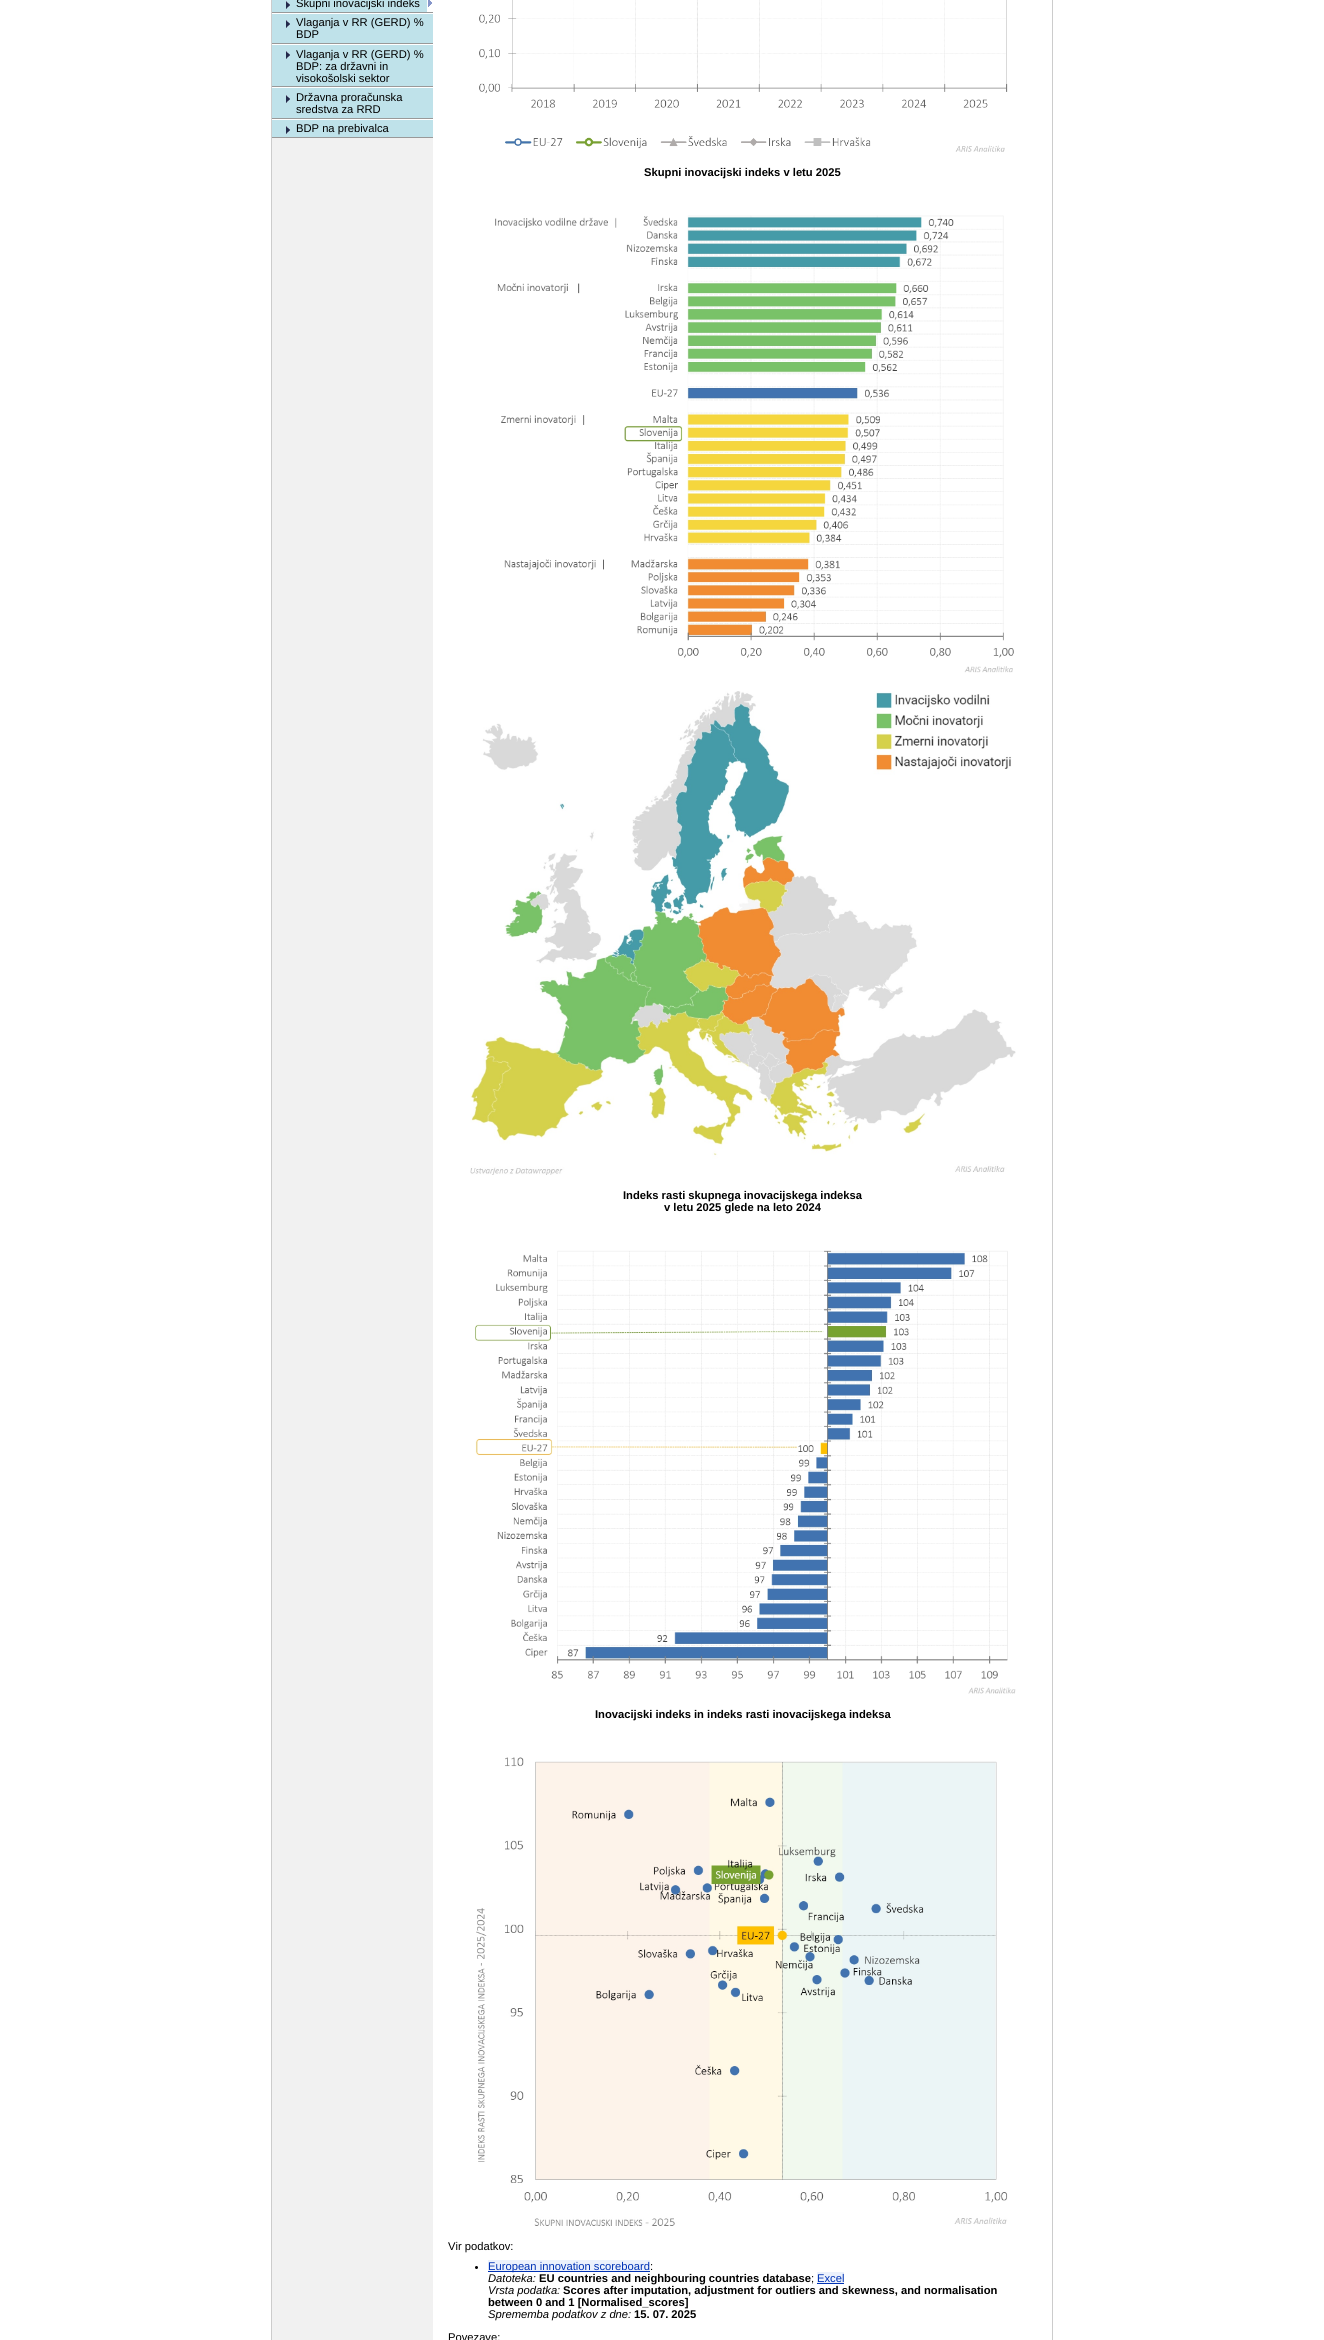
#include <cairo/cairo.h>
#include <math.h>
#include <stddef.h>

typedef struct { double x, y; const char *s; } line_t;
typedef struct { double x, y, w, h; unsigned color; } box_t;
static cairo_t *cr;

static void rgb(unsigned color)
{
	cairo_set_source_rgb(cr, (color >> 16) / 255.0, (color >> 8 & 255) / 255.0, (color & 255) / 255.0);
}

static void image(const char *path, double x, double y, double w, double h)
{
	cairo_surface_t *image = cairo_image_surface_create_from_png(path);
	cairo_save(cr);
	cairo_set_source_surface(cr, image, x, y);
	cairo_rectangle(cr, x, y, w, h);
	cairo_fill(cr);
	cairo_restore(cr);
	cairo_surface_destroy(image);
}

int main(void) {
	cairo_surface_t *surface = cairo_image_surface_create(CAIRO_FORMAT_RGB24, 1324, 2340);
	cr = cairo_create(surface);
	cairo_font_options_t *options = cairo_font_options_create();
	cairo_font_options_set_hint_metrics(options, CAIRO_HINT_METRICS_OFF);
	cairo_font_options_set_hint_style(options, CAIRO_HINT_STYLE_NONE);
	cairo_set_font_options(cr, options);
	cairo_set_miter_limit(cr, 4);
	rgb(0xffffff);
	cairo_paint(cr);
	{
		static const box_t items[] = {
			{1052, 0, 1, 2340, 0xcccccc},
			{271, 0, 1, 2340, 0xcccccc},
			{272, 138, 161, 2202, 0xf1f1f1},
			{272, 12, 161, 1, 0x999999},
			{272, 0, 155, 12, 0xbfe2ea},
		};
		for (size_t i = 0; i < sizeof items / sizeof *items; i++) {
			rgb(items[i].color);
			cairo_rectangle(cr, items[i].x, items[i].y, items[i].w, items[i].h);
			cairo_fill(cr);
		}
	}
	image("img/1.png", 286, 1, 4, 8);
	image("img/2.png", 428, 0, 4, 7);
	rgb(0x999999);
	cairo_rectangle(cr, 272, 43, 161, 1);
	cairo_fill(cr);
	rgb(0xbfe2ea);
	cairo_rectangle(cr, 272, 14, 161, 29);
	cairo_fill(cr);
	image("img/1.png", 286, 20, 4, 8);
	rgb(0x999999);
	cairo_rectangle(cr, 272, 86, 161, 1);
	cairo_fill(cr);
	rgb(0xbfe2ea);
	cairo_rectangle(cr, 272, 45, 161, 41);
	cairo_fill(cr);
	image("img/1.png", 286, 51, 4, 8);
	rgb(0x999999);
	cairo_rectangle(cr, 272, 118, 161, 1);
	cairo_fill(cr);
	rgb(0xbfe2ea);
	cairo_rectangle(cr, 272, 88, 161, 30);
	cairo_fill(cr);
	image("img/1.png", 286, 95, 4, 8);
	rgb(0x999999);
	cairo_rectangle(cr, 272, 137, 161, 1);
	cairo_fill(cr);
	rgb(0xbfe2ea);
	cairo_rectangle(cr, 272, 120, 161, 17);
	cairo_fill(cr);
	image("img/1.png", 286, 126, 4, 8);
	image("img/3.png", 479, 0, 529, 152);
	image("img/4.png", 495, 215, 519, 458);
	image("img/5.png", 470, 691, 546, 484);
	image("img/6.png", 475, 1250, 541, 444);
	image("img/7.png", 476, 1757, 532, 469);
	rgb(0x000000);
	cairo_arc(cr, 476.5, 2267.5, 1.5, 0, 2 * M_PI);
	cairo_fill(cr);
	{
		static const box_t items[] = {
			{488, 2260, 162, 11, 0xebf1fc},
			{488, 2271, 162, 1, 0x0032b5},
			{817, 2272, 27, 11, 0xebf1fc},
			{817, 2283, 27, 1, 0x0032b5},
		};
		for (size_t i = 0; i < sizeof items / sizeof *items; i++) {
			rgb(items[i].color);
			cairo_rectangle(cr, items[i].x, items[i].y, items[i].w, items[i].h);
			cairo_fill(cr);
		}
	}
	cairo_select_font_face(cr, "Liberation Sans", CAIRO_FONT_SLANT_NORMAL, CAIRO_FONT_WEIGHT_NORMAL);
	cairo_set_font_size(cr, 11.2);
	rgb(0x000000);
	{
		static const line_t items[] = {
			{296, 7, "Skupni inovacijski indeks"},
			{296, 26, "Vlaganja v RR (GERD) %"},
			{296, 38, "BDP"},
			{296, 58, "Vlaganja v RR (GERD) %"},
			{296, 70, "BDP: za državni in"},
			{296, 82, "visokošolski sektor"},
			{296, 101, "Državna proračunska"},
			{296, 113, "sredstva za RRD"},
			{296, 132, "BDP na prebivalca"},
		};
		for (size_t i = 0; i < sizeof items / sizeof *items; i++) {
			cairo_move_to(cr, items[i].x, items[i].y);
			cairo_show_text(cr, items[i].s);
		}
	}
	cairo_select_font_face(cr, "Liberation Sans", CAIRO_FONT_SLANT_NORMAL, CAIRO_FONT_WEIGHT_BOLD);
	{
		static const line_t items[] = {
			{644, 176, "Skupni inovacijski indeks v letu 2025"},
			{623, 1199, "Indeks rasti skupnega inovacijskega indeksa"},
			{664, 1211, "v letu 2025 glede na leto 2024"},
			{595, 1718, "Inovacijski indeks in indeks rasti inovacijskega indeksa"},
		};
		for (size_t i = 0; i < sizeof items / sizeof *items; i++) {
			cairo_move_to(cr, items[i].x, items[i].y);
			cairo_show_text(cr, items[i].s);
		}
	}
	cairo_select_font_face(cr, "Liberation Sans", CAIRO_FONT_SLANT_NORMAL, CAIRO_FONT_WEIGHT_NORMAL);
	cairo_move_to(cr, 448, 2250);
	cairo_show_text(cr, "Vir podatkov:");
	rgb(0x0032b5);
	cairo_move_to(cr, 488, 2270);
	cairo_show_text(cr, "European innovation scoreboard");
	rgb(0x000000);
	cairo_move_to(cr, 650, 2270);
	cairo_show_text(cr, ":");
	cairo_select_font_face(cr, "Liberation Sans", CAIRO_FONT_SLANT_ITALIC, CAIRO_FONT_WEIGHT_NORMAL);
	cairo_move_to(cr, 488, 2282);
	cairo_show_text(cr, "Datoteka:");
	cairo_select_font_face(cr, "Liberation Sans", CAIRO_FONT_SLANT_NORMAL, CAIRO_FONT_WEIGHT_BOLD);
	cairo_move_to(cr, 539, 2282);
	cairo_show_text(cr, "EU countries and neighbouring countries database");
	cairo_select_font_face(cr, "Liberation Sans", CAIRO_FONT_SLANT_NORMAL, CAIRO_FONT_WEIGHT_NORMAL);
	cairo_move_to(cr, 811, 2282);
	cairo_show_text(cr, ";");
	rgb(0x0032b5);
	cairo_move_to(cr, 817, 2282);
	cairo_show_text(cr, "Excel");
	cairo_select_font_face(cr, "Liberation Sans", CAIRO_FONT_SLANT_ITALIC, CAIRO_FONT_WEIGHT_NORMAL);
	rgb(0x000000);
	cairo_move_to(cr, 488, 2294);
	cairo_show_text(cr, "Vrsta podatka:");
	cairo_select_font_face(cr, "Liberation Sans", CAIRO_FONT_SLANT_NORMAL, CAIRO_FONT_WEIGHT_BOLD);
	cairo_move_to(cr, 563, 2294);
	cairo_show_text(cr, "Scores after imputation, adjustment for outliers and skewness, and normalisation");
	cairo_move_to(cr, 488, 2306);
	cairo_show_text(cr, "between 0 and 1 [Normalised_scores]");
	cairo_select_font_face(cr, "Liberation Sans", CAIRO_FONT_SLANT_ITALIC, CAIRO_FONT_WEIGHT_NORMAL);
	cairo_move_to(cr, 488, 2318);
	cairo_show_text(cr, "Sprememba podatkov z dne:");
	cairo_select_font_face(cr, "Liberation Sans", CAIRO_FONT_SLANT_NORMAL, CAIRO_FONT_WEIGHT_BOLD);
	cairo_move_to(cr, 634, 2318);
	cairo_show_text(cr, "15. 07. 2025");
	cairo_select_font_face(cr, "Liberation Sans", CAIRO_FONT_SLANT_NORMAL, CAIRO_FONT_WEIGHT_NORMAL);
	cairo_move_to(cr, 448, 2341);
	cairo_show_text(cr, "Povezave:");
	cairo_surface_write_to_png(surface, "page.png");
	cairo_font_options_destroy(options);
	cairo_destroy(cr);
	cairo_surface_destroy(surface);
	return 0;
}
